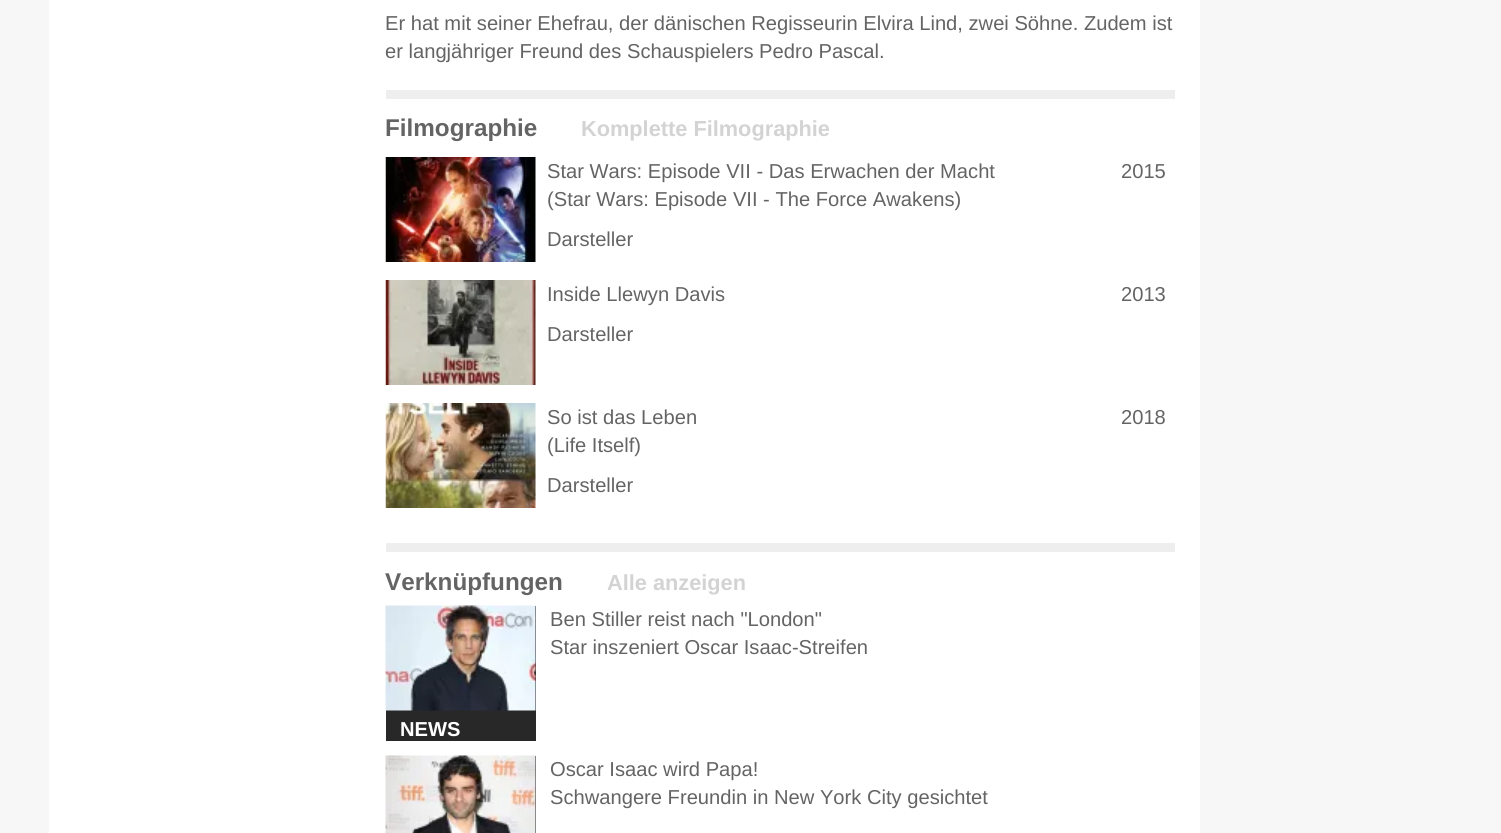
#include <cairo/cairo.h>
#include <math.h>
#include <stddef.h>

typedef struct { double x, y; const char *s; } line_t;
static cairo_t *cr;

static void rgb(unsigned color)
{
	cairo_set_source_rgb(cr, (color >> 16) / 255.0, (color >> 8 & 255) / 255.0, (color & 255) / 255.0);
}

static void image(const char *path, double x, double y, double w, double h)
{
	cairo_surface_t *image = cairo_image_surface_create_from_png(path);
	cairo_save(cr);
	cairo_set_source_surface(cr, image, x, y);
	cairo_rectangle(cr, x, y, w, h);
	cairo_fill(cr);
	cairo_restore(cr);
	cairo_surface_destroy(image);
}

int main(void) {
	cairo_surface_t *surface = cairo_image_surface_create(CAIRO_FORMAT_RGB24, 1501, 833);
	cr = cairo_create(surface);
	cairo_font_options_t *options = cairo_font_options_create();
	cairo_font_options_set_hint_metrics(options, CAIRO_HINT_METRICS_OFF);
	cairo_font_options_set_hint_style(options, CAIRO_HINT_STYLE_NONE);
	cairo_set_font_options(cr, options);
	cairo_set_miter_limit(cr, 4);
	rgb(0xf7f7f7);
	cairo_paint(cr);
	rgb(0xffffff);
	cairo_rectangle(cr, 49, 0, 1151, 833);
	cairo_fill(cr);
	rgb(0xeeeeee);
	cairo_rectangle(cr, 386, 90, 789, 9);
	cairo_fill(cr);
	image("img/1.png", 385, 157, 151, 105);
	image("img/2.png", 385, 280, 151, 105);
	image("img/3.png", 385, 403, 151, 105);
	cairo_rectangle(cr, 386, 543, 789, 9);
	cairo_fill(cr);
	rgb(0x282828);
	cairo_rectangle(cr, 386, 606, 150, 135);
	cairo_fill(cr);
	image("img/4.png", 385, 605, 151, 106);
	cairo_rectangle(cr, 535, 756, 1, 77);
	cairo_fill(cr);
	image("img/5.png", 385, 755, 151, 78);
	cairo_select_font_face(cr, "Liberation Sans", CAIRO_FONT_SLANT_NORMAL, CAIRO_FONT_WEIGHT_NORMAL);
	cairo_set_font_size(cr, 20.15);
	rgb(0x646464);
	cairo_move_to(cr, 385, 30);
	cairo_show_text(cr, "Er hat mit seiner Ehefrau, der dänischen Regisseurin Elvira Lind, zwei Söhne. Zudem ist");
	cairo_move_to(cr, 385, 58);
	cairo_show_text(cr, "er langjähriger Freund des Schauspielers Pedro Pascal.");
	cairo_select_font_face(cr, "Liberation Sans", CAIRO_FONT_SLANT_NORMAL, CAIRO_FONT_WEIGHT_BOLD);
	cairo_set_font_size(cr, 24.25);
	cairo_move_to(cr, 385, 136);
	cairo_show_text(cr, "Filmographie");
	cairo_set_font_size(cr, 21.75);
	rgb(0xd3d3d3);
	cairo_move_to(cr, 581, 136);
	cairo_show_text(cr, "Komplette Filmographie");
	cairo_select_font_face(cr, "Liberation Sans", CAIRO_FONT_SLANT_NORMAL, CAIRO_FONT_WEIGHT_NORMAL);
	cairo_set_font_size(cr, 20.15);
	rgb(0x646464);
	{
		static const line_t items[] = {
			{547, 178, "Star Wars: Episode VII - Das Erwachen der Macht"},
			{547, 206, "(Star Wars: Episode VII - The Force Awakens)"},
			{547, 246, "Darsteller"},
			{1121, 178, "2015"},
			{547, 301, "Inside Llewyn Davis"},
			{547, 341, "Darsteller"},
			{1121, 301, "2013"},
			{547, 424, "So ist das Leben"},
			{547, 452, "(Life Itself)"},
			{547, 492, "Darsteller"},
			{1121, 424, "2018"},
		};
		for (size_t i = 0; i < sizeof items / sizeof *items; i++) {
			cairo_move_to(cr, items[i].x, items[i].y);
			cairo_show_text(cr, items[i].s);
		}
	}
	cairo_select_font_face(cr, "Liberation Sans", CAIRO_FONT_SLANT_NORMAL, CAIRO_FONT_WEIGHT_BOLD);
	cairo_set_font_size(cr, 24.25);
	cairo_move_to(cr, 385, 590);
	cairo_show_text(cr, "Verknüpfungen");
	cairo_set_font_size(cr, 21.75);
	rgb(0xd3d3d3);
	cairo_move_to(cr, 607, 590);
	cairo_show_text(cr, "Alle anzeigen");
	cairo_select_font_face(cr, "Liberation Sans", CAIRO_FONT_SLANT_NORMAL, CAIRO_FONT_WEIGHT_NORMAL);
	cairo_set_font_size(cr, 20.15);
	rgb(0x646464);
	cairo_move_to(cr, 550, 626);
	cairo_show_text(cr, "Ben Stiller reist nach \"London\"");
	cairo_move_to(cr, 550, 654);
	cairo_show_text(cr, "Star inszeniert Oscar Isaac-Streifen");
	cairo_select_font_face(cr, "Liberation Sans", CAIRO_FONT_SLANT_NORMAL, CAIRO_FONT_WEIGHT_BOLD);
	rgb(0xffffff);
	cairo_move_to(cr, 400, 736);
	cairo_show_text(cr, "NEWS");
	cairo_select_font_face(cr, "Liberation Sans", CAIRO_FONT_SLANT_NORMAL, CAIRO_FONT_WEIGHT_NORMAL);
	rgb(0x646464);
	cairo_move_to(cr, 550, 776);
	cairo_show_text(cr, "Oscar Isaac wird Papa!");
	cairo_move_to(cr, 550, 804);
	cairo_show_text(cr, "Schwangere Freundin in New York City gesichtet");
	cairo_surface_write_to_png(surface, "page.png");
	cairo_font_options_destroy(options);
	cairo_destroy(cr);
	cairo_surface_destroy(surface);
	return 0;
}
